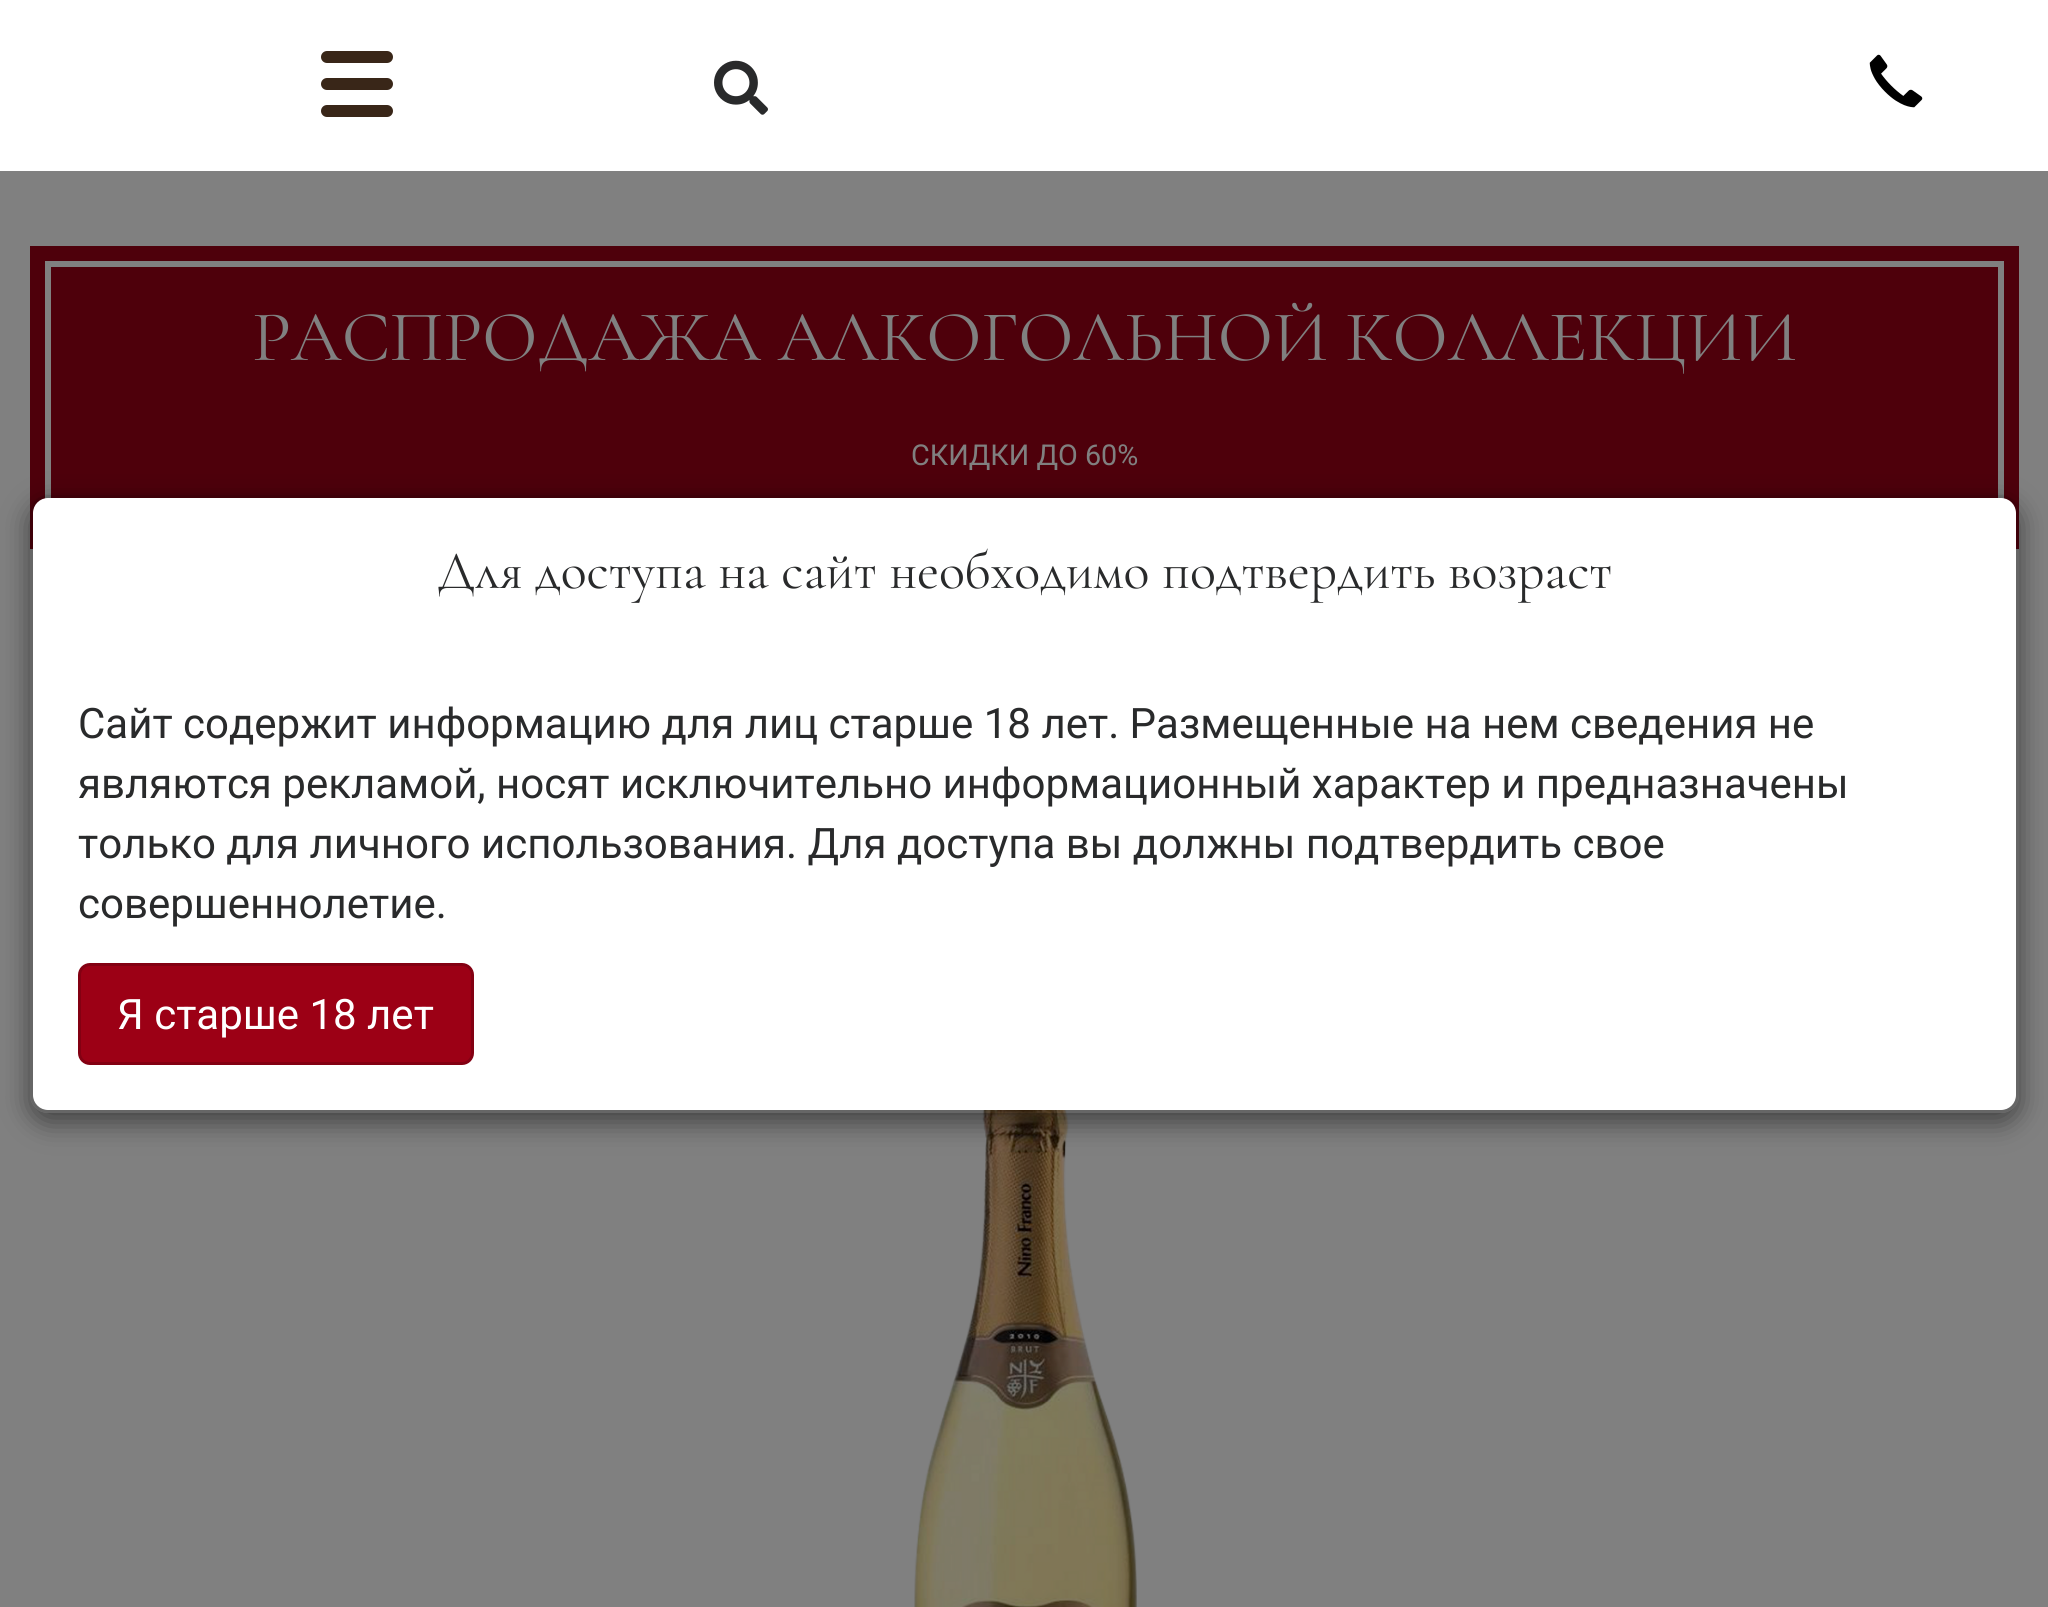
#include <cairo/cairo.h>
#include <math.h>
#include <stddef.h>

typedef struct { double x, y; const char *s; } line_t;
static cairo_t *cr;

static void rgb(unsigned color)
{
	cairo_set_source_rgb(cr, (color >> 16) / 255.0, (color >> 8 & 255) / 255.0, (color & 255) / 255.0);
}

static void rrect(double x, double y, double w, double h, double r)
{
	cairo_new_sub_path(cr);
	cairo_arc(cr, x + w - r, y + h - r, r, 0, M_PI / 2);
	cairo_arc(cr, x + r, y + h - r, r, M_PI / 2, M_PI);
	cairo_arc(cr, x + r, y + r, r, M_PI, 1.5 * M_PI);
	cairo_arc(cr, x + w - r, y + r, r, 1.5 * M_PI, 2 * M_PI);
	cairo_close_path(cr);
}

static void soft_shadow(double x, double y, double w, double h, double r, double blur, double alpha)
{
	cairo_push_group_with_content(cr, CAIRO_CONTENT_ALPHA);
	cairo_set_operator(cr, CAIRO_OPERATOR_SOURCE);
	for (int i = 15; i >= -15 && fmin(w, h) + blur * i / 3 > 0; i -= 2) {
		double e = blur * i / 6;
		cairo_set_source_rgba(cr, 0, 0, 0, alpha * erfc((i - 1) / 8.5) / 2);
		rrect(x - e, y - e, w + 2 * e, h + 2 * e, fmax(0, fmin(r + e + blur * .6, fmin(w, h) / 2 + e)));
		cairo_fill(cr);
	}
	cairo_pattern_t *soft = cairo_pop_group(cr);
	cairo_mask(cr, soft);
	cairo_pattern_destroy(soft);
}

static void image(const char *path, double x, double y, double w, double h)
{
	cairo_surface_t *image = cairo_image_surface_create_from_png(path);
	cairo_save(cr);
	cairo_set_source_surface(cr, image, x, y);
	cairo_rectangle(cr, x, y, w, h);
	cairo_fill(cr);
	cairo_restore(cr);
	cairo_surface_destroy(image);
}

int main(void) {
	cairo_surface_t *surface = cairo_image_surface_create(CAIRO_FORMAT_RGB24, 2048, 1607);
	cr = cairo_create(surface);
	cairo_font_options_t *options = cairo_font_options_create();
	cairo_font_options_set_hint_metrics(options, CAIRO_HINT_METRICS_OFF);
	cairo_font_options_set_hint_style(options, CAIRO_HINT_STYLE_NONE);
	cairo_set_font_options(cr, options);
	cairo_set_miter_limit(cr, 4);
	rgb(0x808080);
	cairo_paint(cr);
	rgb(0xffffff);
	cairo_rectangle(cr, 0, 0, 2048, 171);
	cairo_fill(cr);
	rgb(0x392618);
	rrect(321, 51, 72, 12, 6);
	cairo_fill(cr);
	rrect(321, 78, 72, 12, 6);
	cairo_fill(cr);
	rrect(321, 105, 72, 12, 6);
	cairo_fill(cr);
	image("img/1.png", 714, 60, 54, 55);
	image("img/2.png", 1869, 54, 54, 54);
	rgb(0x4e000b);
	cairo_rectangle(cr, 51, 267, 1947, 231);
	cairo_fill(cr);
	cairo_rectangle(cr, 37.5, 253.5, 1974, 288);
	cairo_set_line_width(cr, 15);
	cairo_stroke(cr);
	image("img/3.png", 914, 1110, 223, 497);
	cairo_save(cr);
	cairo_set_fill_rule(cr, CAIRO_FILL_RULE_EVEN_ODD);
	cairo_new_path(cr);
	cairo_move_to(cr, 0, 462);
	cairo_line_to(cr, 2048, 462);
	cairo_line_to(cr, 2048, 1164);
	cairo_line_to(cr, 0, 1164);
	cairo_close_path(cr);
	cairo_move_to(cr, 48, 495);
	cairo_line_to(cr, 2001, 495);
	cairo_curve_to(cr, 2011, 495, 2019, 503, 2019, 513);
	cairo_line_to(cr, 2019, 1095);
	cairo_curve_to(cr, 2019, 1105, 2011, 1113, 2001, 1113);
	cairo_line_to(cr, 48, 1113);
	cairo_curve_to(cr, 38, 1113, 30, 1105, 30, 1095);
	cairo_line_to(cr, 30, 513);
	cairo_curve_to(cr, 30, 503, 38, 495, 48, 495);
	cairo_close_path(cr);
	cairo_clip(cr);
	rgb(0x000000);
	soft_shadow(30, 504, 1989, 618, 18, 13.5, 0.5);
	cairo_restore(cr);
	rgb(0xffffff);
	rrect(33, 498, 1983, 612, 15);
	cairo_fill(cr);
	rrect(31.5, 496.5, 1986, 615, 16.5);
	cairo_set_source_rgba(cr, 0, 0, 0, 0.2);
	cairo_set_line_width(cr, 3);
	cairo_stroke(cr);
	rgb(0x9c0015);
	rrect(79.5, 964.5, 393, 99, 10.5);
	cairo_fill_preserve(cr);
	rgb(0x830012);
	cairo_stroke(cr);
	cairo_select_font_face(cr, "Cormorant Garamond Light", CAIRO_FONT_SLANT_NORMAL, CAIRO_FONT_WEIGHT_NORMAL);
	cairo_set_font_size(cr, 72);
	rgb(0x808080);
	cairo_move_to(cr, 252, 360);
	cairo_show_text(cr, "РАСПРОДАЖА АЛКОГОЛЬНОЙ КОЛЛЕКЦИИ");
	cairo_select_font_face(cr, "Roboto", CAIRO_FONT_SLANT_NORMAL, CAIRO_FONT_WEIGHT_NORMAL);
	cairo_set_font_size(cr, 28.75);
	cairo_move_to(cr, 911, 465);
	cairo_show_text(cr, "СКИДКИ ДО 60%");
	cairo_select_font_face(cr, "Cormorant Garamond Light", CAIRO_FONT_SLANT_NORMAL, CAIRO_FONT_WEIGHT_NORMAL);
	cairo_set_font_size(cr, 54);
	rgb(0x292a2b);
	cairo_move_to(cr, 437, 588);
	cairo_show_text(cr, "Для доступа на сайт необходимо подтвердить возраст");
	cairo_select_font_face(cr, "Roboto", CAIRO_FONT_SLANT_NORMAL, CAIRO_FONT_WEIGHT_NORMAL);
	cairo_set_font_size(cr, 42);
	{
		static const line_t items[] = {
			{78, 738, "Сайт содержит информацию для лиц старше 18 лет. Размещенные на нем сведения не"},
			{78, 798, "являются рекламой, носят исключительно информационный характер и предназначены"},
			{78, 858, "только для личного использования. Для доступа вы должны подтвердить свое"},
			{78, 918, "совершеннолетие."},
		};
		for (size_t i = 0; i < sizeof items / sizeof *items; i++) {
			cairo_move_to(cr, items[i].x, items[i].y);
			cairo_show_text(cr, items[i].s);
		}
	}
	rgb(0xffffff);
	cairo_move_to(cr, 117, 1029);
	cairo_show_text(cr, "Я старше 18 лет");
	cairo_surface_write_to_png(surface, "page.png");
	cairo_font_options_destroy(options);
	cairo_destroy(cr);
	cairo_surface_destroy(surface);
	return 0;
}
